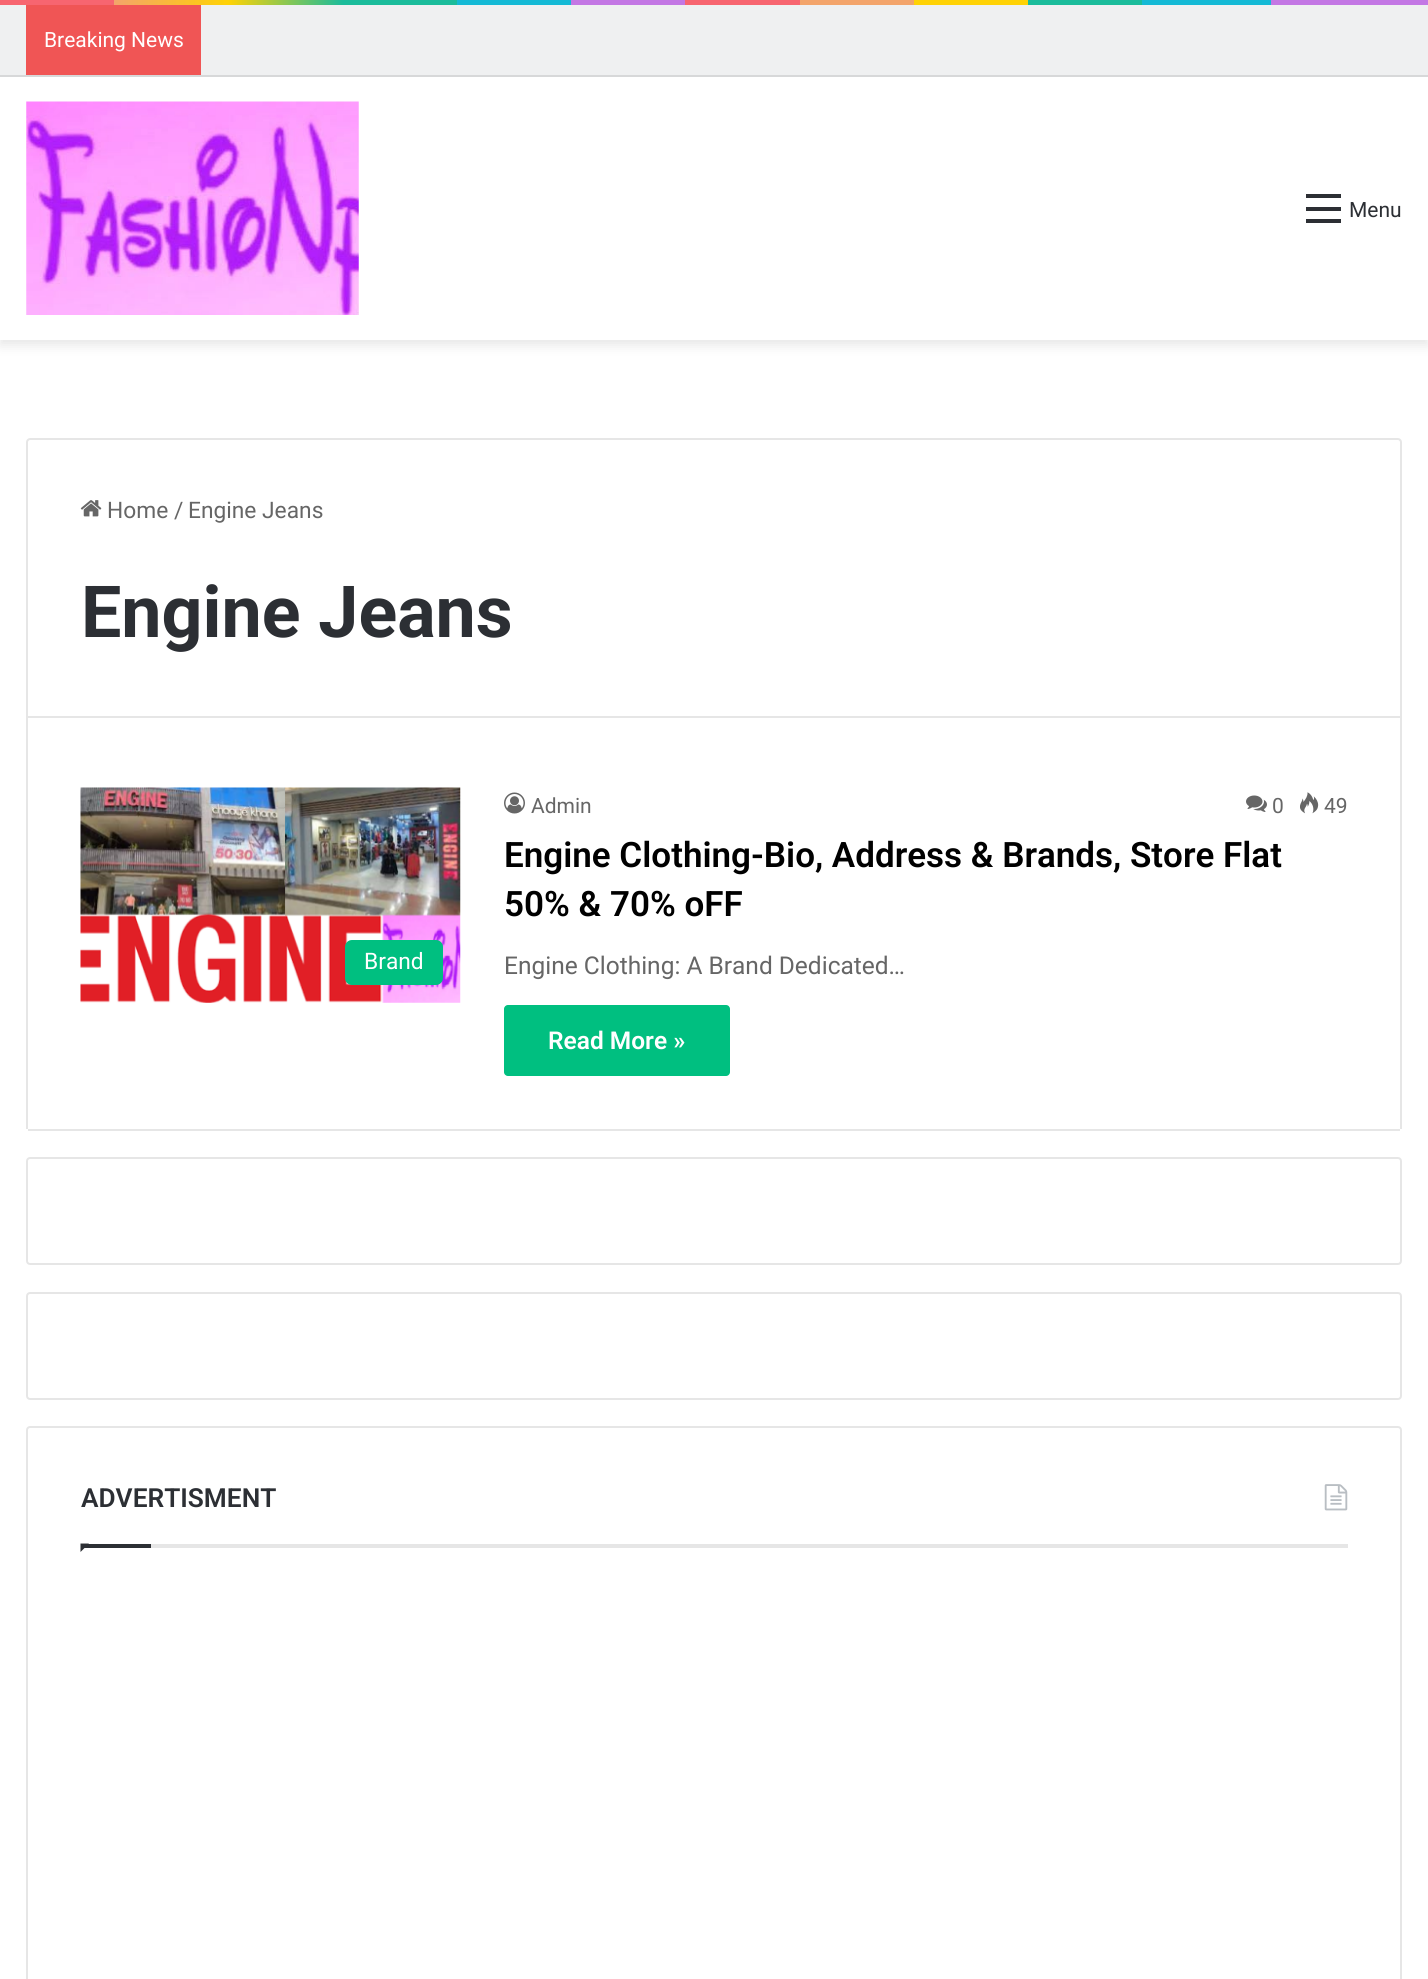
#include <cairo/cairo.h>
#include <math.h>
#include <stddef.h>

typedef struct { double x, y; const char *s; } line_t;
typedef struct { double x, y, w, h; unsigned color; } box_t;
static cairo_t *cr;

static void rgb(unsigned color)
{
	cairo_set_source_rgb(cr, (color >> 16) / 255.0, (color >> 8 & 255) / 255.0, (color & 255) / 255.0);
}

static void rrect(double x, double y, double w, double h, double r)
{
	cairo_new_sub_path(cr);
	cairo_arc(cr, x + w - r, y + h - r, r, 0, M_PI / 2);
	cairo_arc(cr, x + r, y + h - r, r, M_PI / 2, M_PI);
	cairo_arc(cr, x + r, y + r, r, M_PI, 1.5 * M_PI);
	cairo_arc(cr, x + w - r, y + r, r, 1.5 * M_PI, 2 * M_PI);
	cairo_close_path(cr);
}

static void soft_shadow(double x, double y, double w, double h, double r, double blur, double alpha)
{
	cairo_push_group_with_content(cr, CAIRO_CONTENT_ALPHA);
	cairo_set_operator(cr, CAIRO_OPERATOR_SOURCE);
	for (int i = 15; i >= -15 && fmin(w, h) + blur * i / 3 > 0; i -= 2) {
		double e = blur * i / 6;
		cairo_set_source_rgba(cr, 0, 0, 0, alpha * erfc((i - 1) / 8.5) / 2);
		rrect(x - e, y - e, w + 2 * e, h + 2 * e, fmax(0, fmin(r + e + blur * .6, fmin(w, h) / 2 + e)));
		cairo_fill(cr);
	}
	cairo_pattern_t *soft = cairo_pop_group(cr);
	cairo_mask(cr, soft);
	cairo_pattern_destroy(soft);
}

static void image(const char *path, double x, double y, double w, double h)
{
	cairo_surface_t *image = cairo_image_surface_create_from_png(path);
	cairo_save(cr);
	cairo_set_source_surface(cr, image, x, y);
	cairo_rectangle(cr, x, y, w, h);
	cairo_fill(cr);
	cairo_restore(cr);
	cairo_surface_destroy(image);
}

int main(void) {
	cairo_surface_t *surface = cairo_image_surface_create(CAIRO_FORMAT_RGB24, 1428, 1979);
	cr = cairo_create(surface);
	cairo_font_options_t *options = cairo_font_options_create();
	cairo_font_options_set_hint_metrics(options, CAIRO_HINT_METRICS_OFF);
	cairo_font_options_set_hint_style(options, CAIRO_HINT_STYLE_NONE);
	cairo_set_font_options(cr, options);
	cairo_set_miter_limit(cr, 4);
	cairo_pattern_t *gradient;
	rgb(0xffffff);
	cairo_paint(cr);
	gradient = cairo_pattern_create_linear(0, 2.6, 1428, 2.6);
	cairo_pattern_add_color_stop_rgba(gradient, 0, 0.969, 0.396, 0.439, 1);
	cairo_pattern_add_color_stop_rgba(gradient, 0.08, 0.969, 0.396, 0.439, 1);
	cairo_pattern_add_color_stop_rgba(gradient, 0.08, 0.953, 0.643, 0.42, 1);
	cairo_pattern_add_color_stop_rgba(gradient, 0.16, 1, 0.824, 0.02, 1);
	cairo_pattern_add_color_stop_rgba(gradient, 0.24, 0.106, 0.737, 0.608, 1);
	cairo_pattern_add_color_stop_rgba(gradient, 0.32, 0.106, 0.737, 0.608, 1);
	cairo_pattern_add_color_stop_rgba(gradient, 0.32, 0.078, 0.725, 0.835, 1);
	cairo_pattern_add_color_stop_rgba(gradient, 0.4, 0.078, 0.725, 0.835, 1);
	cairo_pattern_add_color_stop_rgba(gradient, 0.4, 0.765, 0.467, 0.894, 1);
	cairo_pattern_add_color_stop_rgba(gradient, 0.48, 0.765, 0.467, 0.894, 1);
	cairo_pattern_add_color_stop_rgba(gradient, 0.48, 0.969, 0.396, 0.439, 1);
	cairo_pattern_add_color_stop_rgba(gradient, 0.56, 0.969, 0.396, 0.439, 1);
	cairo_pattern_add_color_stop_rgba(gradient, 0.56, 0.953, 0.643, 0.42, 1);
	cairo_pattern_add_color_stop_rgba(gradient, 0.64, 0.953, 0.643, 0.42, 1);
	cairo_pattern_add_color_stop_rgba(gradient, 0.64, 1, 0.824, 0.02, 1);
	cairo_pattern_add_color_stop_rgba(gradient, 0.72, 1, 0.824, 0.02, 1);
	cairo_pattern_add_color_stop_rgba(gradient, 0.72, 0.106, 0.737, 0.608, 1);
	cairo_pattern_add_color_stop_rgba(gradient, 0.8, 0.106, 0.737, 0.608, 1);
	cairo_pattern_add_color_stop_rgba(gradient, 0.8, 0.078, 0.725, 0.835, 1);
	cairo_pattern_add_color_stop_rgba(gradient, 0.89, 0.078, 0.725, 0.835, 1);
	cairo_pattern_add_color_stop_rgba(gradient, 0.89, 0.765, 0.467, 0.894, 1);
	cairo_pattern_add_color_stop_rgba(gradient, 1, 0.765, 0.467, 0.894, 1);
	cairo_set_source(cr, gradient);
	cairo_pattern_destroy(gradient);
	cairo_rectangle(cr, 0, 0, 1428, 5);
	cairo_fill(cr);
	rgb(0x000000);
	soft_shadow(0, 82, 1428, 263, 0, 6, 0.1);
	{
		static const box_t items[] = {
			{0, 5, 1428, 70, 0xeff0f1},
			{0, 75, 1428, 2, 0xd7d8d9},
			{26, 5, 175, 70, 0xf05555},
			{0, 77, 1428, 263, 0xffffff},
		};
		for (size_t i = 0; i < sizeof items / sizeof *items; i++) {
			rgb(items[i].color);
			cairo_rectangle(cr, items[i].x, items[i].y, items[i].w, items[i].h);
			cairo_fill(cr);
		}
	}
	image("img/1.png", 26, 101, 333, 214);
	{
		static const box_t items[] = {
			{1306, 207, 35, 4, 0x2c2f34},
			{1306, 194, 35, 4, 0x2c2f34},
			{1306, 219, 35, 4, 0x2c2f34},
		};
		for (size_t i = 0; i < sizeof items / sizeof *items; i++) {
			rgb(items[i].color);
			cairo_rectangle(cr, items[i].x, items[i].y, items[i].w, items[i].h);
			cairo_fill(cr);
		}
	}
	cairo_new_path(cr);
	cairo_move_to(cr, 30, 439);
	cairo_line_to(cr, 1398, 439);
	cairo_curve_to(cr, 1399.5, 439, 1401, 440.5, 1401, 442);
	cairo_line_to(cr, 1401, 717);
	cairo_line_to(cr, 27, 717);
	cairo_line_to(cr, 27, 442);
	cairo_curve_to(cr, 27, 440.5, 28.5, 439, 30, 439);
	cairo_close_path(cr);
	rgb(0xe6e6e6);
	cairo_stroke(cr);
	image("img/2.png", 80, 500, 22, 17);
	{
		static const box_t items[] = {
			{1400, 718, 2, 411, 0xe6e6e6},
			{28, 1129, 1372, 2, 0xe6e6e6},
			{26, 718, 2, 411, 0xe6e6e6},
		};
		for (size_t i = 0; i < sizeof items / sizeof *items; i++) {
			rgb(items[i].color);
			cairo_rectangle(cr, items[i].x, items[i].y, items[i].w, items[i].h);
			cairo_fill(cr);
		}
	}
	image("img/3.png", 80, 787, 381, 216);
	rgb(0x00bf80);
	rrect(345, 940, 98, 45, 7);
	cairo_fill(cr);
	image("img/4.png", 504, 792, 21, 22);
	image("img/5.png", 1246, 795, 21, 17);
	image("img/6.png", 1300, 792, 19, 22);
	rrect(504, 1005, 226, 71, 4);
	cairo_fill(cr);
	rrect(27, 1158, 1374, 106, 3);
	rgb(0xe6e6e6);
	cairo_stroke(cr);
	rrect(27, 1293, 1374, 106, 3);
	cairo_stroke(cr);
	rrect(27, 1427, 1374, 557, 3);
	cairo_stroke(cr);
	cairo_rectangle(cr, 151, 1544, 1197, 4);
	cairo_fill(cr);
	image("img/7.png", 1324, 1484, 24, 27);
	rgb(0x2c2f34);
	cairo_new_path(cr);
	cairo_move_to(cr, 80.5, 1543.5);
	cairo_line_to(cr, 89, 1543.5);
	cairo_line_to(cr, 80.5, 1552);
	cairo_close_path(cr);
	cairo_fill(cr);
	cairo_rectangle(cr, 81, 1544, 70, 4);
	cairo_fill(cr);
	cairo_select_font_face(cr, "Roboto", CAIRO_FONT_SLANT_NORMAL, CAIRO_FONT_WEIGHT_NORMAL);
	cairo_set_font_size(cr, 21);
	rgb(0xffffff);
	cairo_move_to(cr, 44, 47);
	cairo_show_text(cr, "Breaking News");
	rgb(0x2c2f34);
	cairo_move_to(cr, 1349, 217);
	cairo_show_text(cr, "Menu");
	cairo_set_font_size(cr, 22.75);
	rgb(0x666666);
	{
		static const line_t items[] = {
			{107, 518, "Home"},
			{174, 518, "/"},
			{188, 518, "Engine Jeans"},
		};
		for (size_t i = 0; i < sizeof items / sizeof *items; i++) {
			cairo_move_to(cr, items[i].x, items[i].y);
			cairo_show_text(cr, items[i].s);
		}
	}
	cairo_select_font_face(cr, "Roboto", CAIRO_FONT_SLANT_NORMAL, CAIRO_FONT_WEIGHT_BOLD);
	cairo_set_font_size(cr, 71.75);
	rgb(0x2c2f34);
	cairo_move_to(cr, 81, 637);
	cairo_show_text(cr, "Engine Jeans");
	cairo_select_font_face(cr, "Roboto", CAIRO_FONT_SLANT_NORMAL, CAIRO_FONT_WEIGHT_NORMAL);
	cairo_set_font_size(cr, 22.75);
	rgb(0xffffff);
	cairo_move_to(cr, 364, 969);
	cairo_show_text(cr, "Brand");
	cairo_set_font_size(cr, 21);
	rgb(0x666666);
	{
		static const line_t items[] = {
			{531, 813, "Admin"},
			{1272, 813, "0"},
			{1324, 813, "49"},
		};
		for (size_t i = 0; i < sizeof items / sizeof *items; i++) {
			cairo_move_to(cr, items[i].x, items[i].y);
			cairo_show_text(cr, items[i].s);
		}
	}
	cairo_select_font_face(cr, "Roboto SemiBold", CAIRO_FONT_SLANT_NORMAL, CAIRO_FONT_WEIGHT_NORMAL);
	cairo_set_font_size(cr, 35);
	rgb(0x000000);
	cairo_move_to(cr, 504, 867);
	cairo_show_text(cr, "Engine Clothing-Bio, Address & Brands, Store Flat");
	cairo_move_to(cr, 504, 916);
	cairo_show_text(cr, "50% & 70% oFF");
	cairo_select_font_face(cr, "Roboto", CAIRO_FONT_SLANT_NORMAL, CAIRO_FONT_WEIGHT_NORMAL);
	cairo_set_font_size(cr, 24.5);
	rgb(0x666666);
	cairo_move_to(cr, 504, 974);
	cairo_show_text(cr, "Engine Clothing: A Brand Dedicated…");
	cairo_select_font_face(cr, "Roboto SemiBold", CAIRO_FONT_SLANT_NORMAL, CAIRO_FONT_WEIGHT_NORMAL);
	rgb(0xffffff);
	cairo_move_to(cr, 548, 1049);
	cairo_show_text(cr, "Read More »");
	cairo_set_font_size(cr, 26.25);
	rgb(0x2c2f34);
	cairo_move_to(cr, 81, 1507);
	cairo_show_text(cr, "ADVERTISMENT");
	cairo_surface_write_to_png(surface, "page.png");
	cairo_font_options_destroy(options);
	cairo_destroy(cr);
	cairo_surface_destroy(surface);
	return 0;
}
